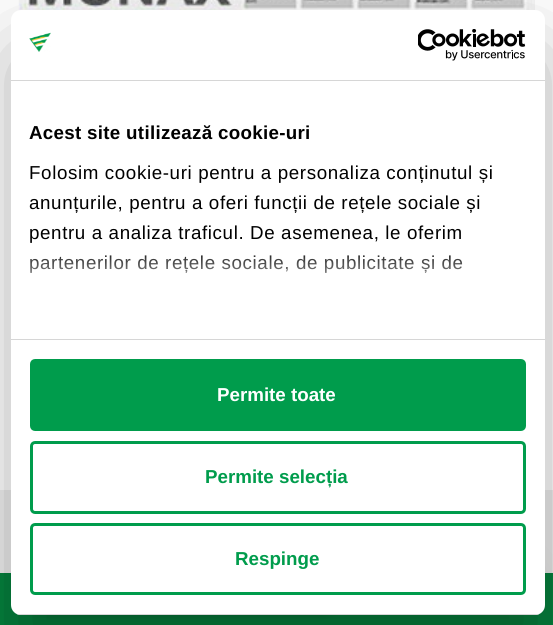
#include <cairo/cairo.h>
#include <math.h>
#include <stddef.h>

typedef struct { double x, y; const char *s; } line_t;
static cairo_t *cr;

static void rgb(unsigned color)
{
	cairo_set_source_rgb(cr, (color >> 16) / 255.0, (color >> 8 & 255) / 255.0, (color & 255) / 255.0);
}

static void tracked(double x, double y, const char *s, double letter, double word)
{
	cairo_move_to(cr, x, y);
	while (*s) {
		char ch[5] = {0};
		int n = 0;
		do ch[n++] = *s++; while ((*s & 0xC0) == 0x80);
		cairo_show_text(cr, ch);
		cairo_rel_move_to(cr, letter + word * (*ch == ' '), 0);
	}
}

static void rrect(double x, double y, double w, double h, double r)
{
	cairo_new_sub_path(cr);
	cairo_arc(cr, x + w - r, y + h - r, r, 0, M_PI / 2);
	cairo_arc(cr, x + r, y + h - r, r, M_PI / 2, M_PI);
	cairo_arc(cr, x + r, y + r, r, M_PI, 1.5 * M_PI);
	cairo_arc(cr, x + w - r, y + r, r, 1.5 * M_PI, 2 * M_PI);
	cairo_close_path(cr);
}

static void soft_shadow(double x, double y, double w, double h, double r, double blur, double alpha)
{
	cairo_push_group_with_content(cr, CAIRO_CONTENT_ALPHA);
	cairo_set_operator(cr, CAIRO_OPERATOR_SOURCE);
	for (int i = 15; i >= -15 && fmin(w, h) + blur * i / 3 > 0; i -= 2) {
		double e = blur * i / 6;
		cairo_set_source_rgba(cr, 0, 0, 0, alpha * erfc((i - 1) / 8.5) / 2);
		rrect(x - e, y - e, w + 2 * e, h + 2 * e, fmax(0, fmin(r + e + blur * .6, fmin(w, h) / 2 + e)));
		cairo_fill(cr);
	}
	cairo_pattern_t *soft = cairo_pop_group(cr);
	cairo_mask(cr, soft);
	cairo_pattern_destroy(soft);
}

static void image(const char *path, double x, double y, double w, double h)
{
	cairo_surface_t *image = cairo_image_surface_create_from_png(path);
	cairo_save(cr);
	cairo_set_source_surface(cr, image, x, y);
	cairo_rectangle(cr, x, y, w, h);
	cairo_fill(cr);
	cairo_restore(cr);
	cairo_surface_destroy(image);
}

int main(void) {
	cairo_surface_t *surface = cairo_image_surface_create(CAIRO_FORMAT_RGB24, 553, 625);
	cr = cairo_create(surface);
	cairo_font_options_t *options = cairo_font_options_create();
	cairo_font_options_set_hint_metrics(options, CAIRO_HINT_METRICS_OFF);
	cairo_font_options_set_hint_style(options, CAIRO_HINT_STYLE_NONE);
	cairo_set_font_options(cr, options);
	cairo_set_miter_limit(cr, 4);
	cairo_pattern_t *gradient;
	rgb(0xffffff);
	cairo_paint(cr);
	image("img/1.png", 18, 0, 517, 11);
	rgb(0xefefef);
	cairo_rectangle(cr, 0, 490, 553, 83);
	cairo_fill(cr);
	rgb(0x05833e);
	cairo_rectangle(cr, 0, 573, 553, 52);
	cairo_fill(cr);
	rgb(0x000000);
	soft_shadow(11, 50, 534, 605, 10, 42.5, 0.3);
	soft_shadow(16, 558, 330, 56, 28, 4, 0.2);
	rgb(0x4c4026);
	soft_shadow(483, 559, 52, 51, 19, 12.5, 0.2);
	rgb(0xffffff);
	rrect(11, 10, 534, 605, 10);
	cairo_fill(cr);
	rgb(0xd6d6d6);
	cairo_rectangle(cr, 11, 80, 534, 1);
	cairo_fill(cr);
	image("img/2.png", 29, 32, 22, 20);
	image("img/3.png", 418, 29, 108, 32);
	cairo_rectangle(cr, 11, 339, 534, 1);
	cairo_fill(cr);
	cairo_save(cr);
	rrect(11, 10, 534, 605, 10);
	cairo_clip(cr);
	cairo_rectangle(cr, 11, 614, 534, 1);
	cairo_fill(cr);
	cairo_restore(cr);
	rgb(0x009c4c);
	rrect(31.5, 360.5, 493, 69, 3.5);
	cairo_fill_preserve(cr);
	cairo_set_line_width(cr, 3);
	cairo_stroke(cr);
	rrect(31.5, 442.5, 493, 70, 3.5);
	cairo_stroke(cr);
	rrect(31.5, 524.5, 493, 69, 3.5);
	cairo_stroke(cr);
	cairo_select_font_face(cr, "Liberation Sans", CAIRO_FONT_SLANT_NORMAL, CAIRO_FONT_WEIGHT_BOLD);
	cairo_set_font_size(cr, 18.75);
	rgb(0x000000);
	tracked(29, 139, "Acest site utilizează cookie-uri", 0.3, 0);
	cairo_select_font_face(cr, "Liberation Sans", CAIRO_FONT_SLANT_NORMAL, CAIRO_FONT_WEIGHT_NORMAL);
	{
		static const line_t items[] = {
			{29, 179, "Folosim cookie-uri pentru a personaliza conținutul și"},
			{29, 209, "anunțurile, pentru a oferi funcții de rețele sociale și"},
			{29, 239, "pentru a analiza traficul. De asemenea, le oferim"},
			{29, 269, "partenerilor de rețele sociale, de publicitate și de"},
		};
		for (size_t i = 0; i < sizeof items / sizeof *items; i++) {
			tracked(items[i].x, items[i].y, items[i].s, 0.62, 0);
		}
	}
	gradient = cairo_pattern_create_linear(269, 339, 269, 245);
	cairo_pattern_add_color_stop_rgba(gradient, 0, 1, 1, 1, 1);
	cairo_pattern_add_color_stop_rgba(gradient, 0.5, 1, 1, 1, 0.8);
	cairo_pattern_add_color_stop_rgba(gradient, 1, 1, 1, 1, 0);
	cairo_set_source(cr, gradient);
	cairo_pattern_destroy(gradient);
	cairo_rectangle(cr, 30, 255, 433, 18);
	cairo_fill(cr);
	cairo_select_font_face(cr, "Liberation Sans", CAIRO_FONT_SLANT_NORMAL, CAIRO_FONT_WEIGHT_BOLD);
	rgb(0xffffff);
	cairo_move_to(cr, 217, 401);
	cairo_show_text(cr, "Permite toate");
	rgb(0x009c4c);
	cairo_move_to(cr, 205, 483);
	cairo_show_text(cr, "Permite selecția");
	cairo_move_to(cr, 235, 565);
	cairo_show_text(cr, "Respinge");
	cairo_surface_write_to_png(surface, "page.png");
	cairo_font_options_destroy(options);
	cairo_destroy(cr);
	cairo_surface_destroy(surface);
	return 0;
}
